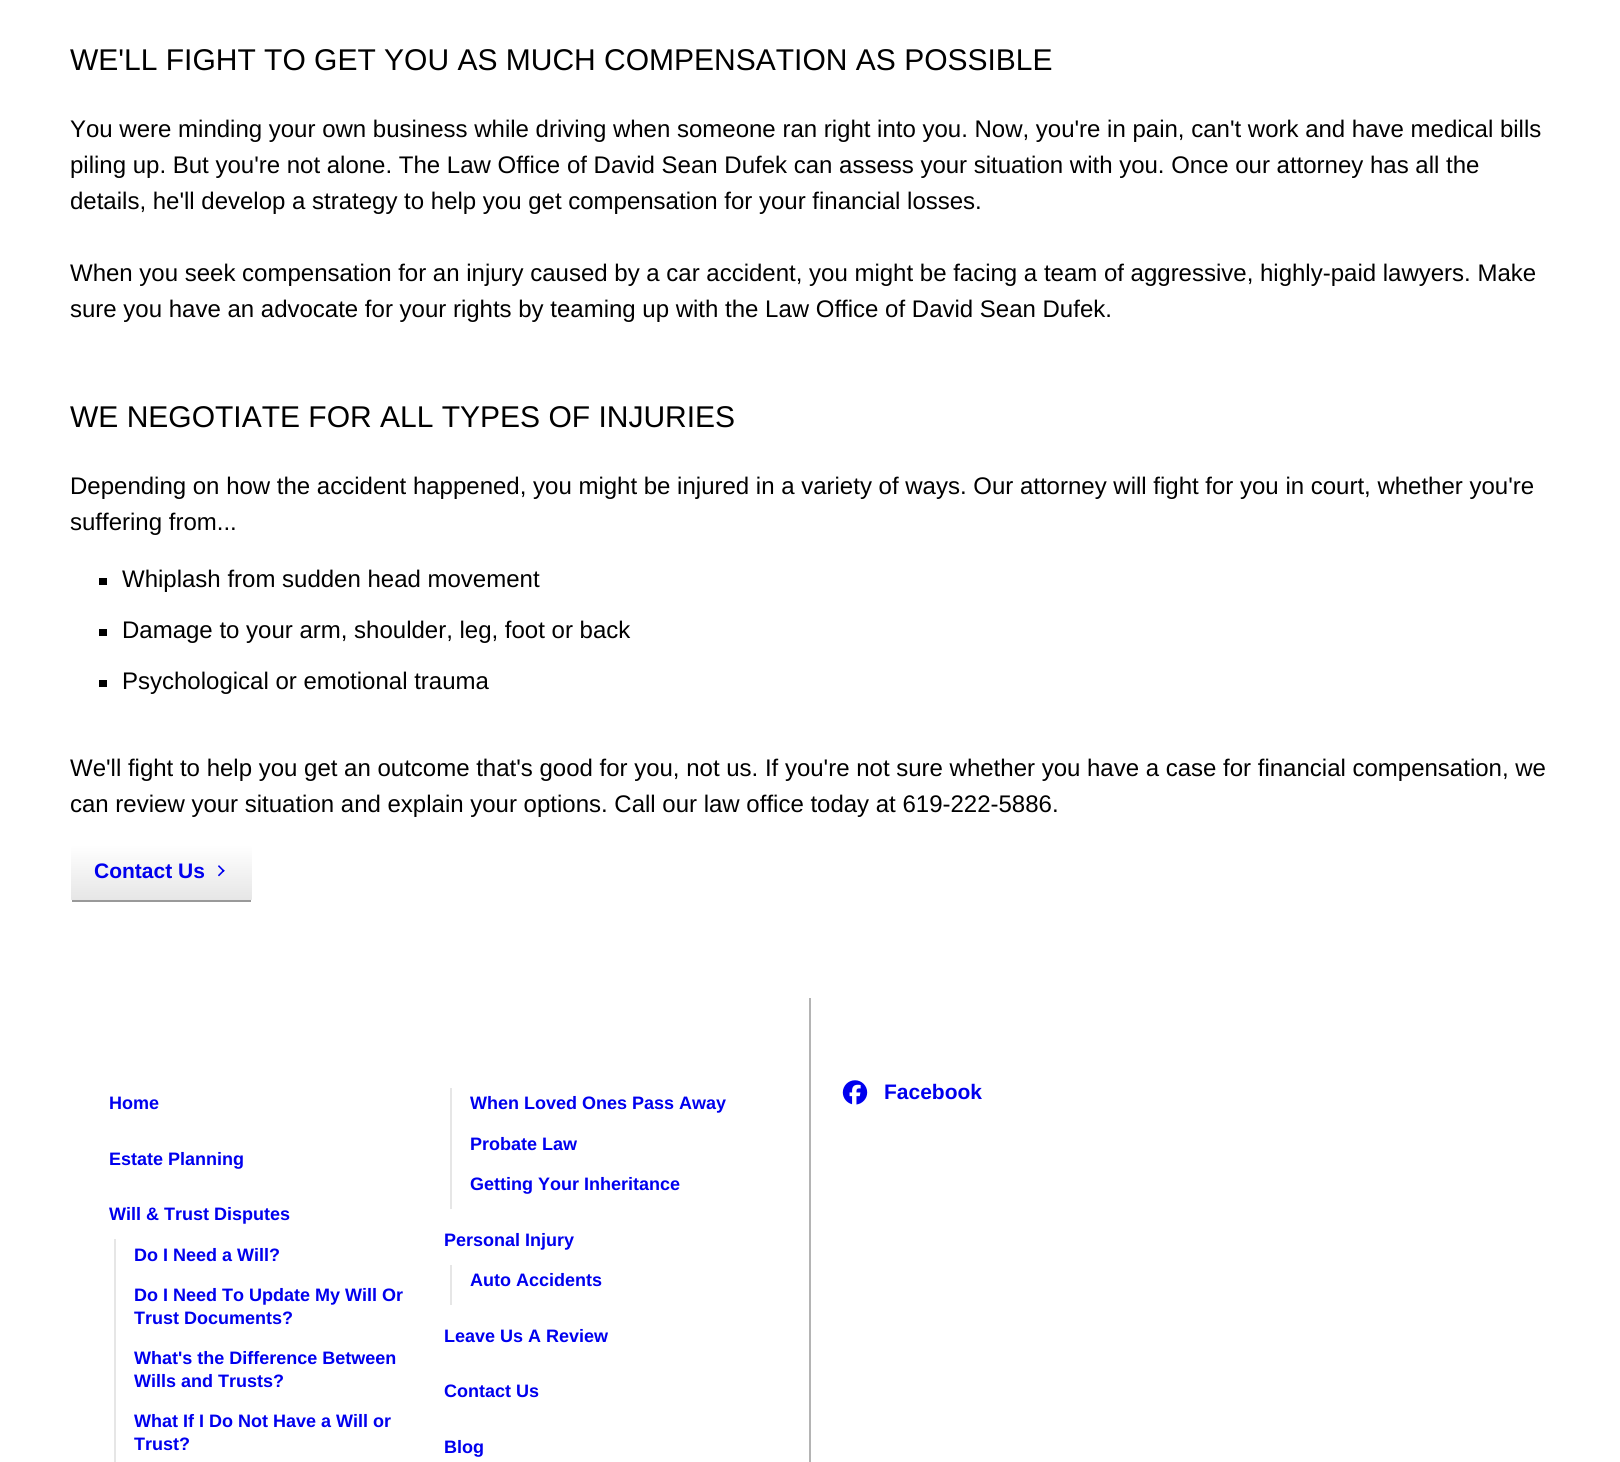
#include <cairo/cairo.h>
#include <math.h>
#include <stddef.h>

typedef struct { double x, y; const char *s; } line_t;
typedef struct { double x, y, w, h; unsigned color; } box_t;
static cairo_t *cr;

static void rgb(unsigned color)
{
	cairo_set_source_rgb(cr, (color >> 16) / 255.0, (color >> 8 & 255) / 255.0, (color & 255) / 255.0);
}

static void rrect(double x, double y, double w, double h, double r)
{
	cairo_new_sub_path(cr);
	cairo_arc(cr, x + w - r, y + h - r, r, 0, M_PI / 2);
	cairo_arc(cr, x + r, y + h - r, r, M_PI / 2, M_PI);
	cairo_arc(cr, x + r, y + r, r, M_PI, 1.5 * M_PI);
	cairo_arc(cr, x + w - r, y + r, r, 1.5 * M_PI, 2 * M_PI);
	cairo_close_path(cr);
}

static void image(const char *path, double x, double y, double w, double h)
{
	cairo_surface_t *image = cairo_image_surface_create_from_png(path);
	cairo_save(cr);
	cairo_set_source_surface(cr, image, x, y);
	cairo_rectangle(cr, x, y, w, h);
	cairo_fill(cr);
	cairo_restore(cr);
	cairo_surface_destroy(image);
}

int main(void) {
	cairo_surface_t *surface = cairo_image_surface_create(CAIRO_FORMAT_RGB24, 1620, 1462);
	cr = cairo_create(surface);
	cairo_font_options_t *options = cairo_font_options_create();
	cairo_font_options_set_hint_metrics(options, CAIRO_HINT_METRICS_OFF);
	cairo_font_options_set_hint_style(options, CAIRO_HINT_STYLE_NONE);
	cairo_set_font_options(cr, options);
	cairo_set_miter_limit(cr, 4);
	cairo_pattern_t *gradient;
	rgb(0xffffff);
	cairo_paint(cr);
	{
		static const box_t items[] = {
			{99, 578, 8, 7, 0x000000},
			{99, 629, 8, 7, 0x000000},
			{99, 680, 8, 7, 0x000000},
		};
		for (size_t i = 0; i < sizeof items / sizeof *items; i++) {
			rgb(items[i].color);
			cairo_rectangle(cr, items[i].x, items[i].y, items[i].w, items[i].h);
			cairo_fill(cr);
		}
	}
	cairo_save(cr);
	rrect(71, 845, 181, 57, 3);
	cairo_clip(cr);
	gradient = cairo_pattern_create_linear(161, 845, 161, 900);
	cairo_pattern_add_color_stop_rgba(gradient, 0, 1, 1, 1, 1);
	cairo_pattern_add_color_stop_rgba(gradient, 1, 0.902, 0.902, 0.902, 1);
	cairo_set_source(cr, gradient);
	cairo_pattern_destroy(gradient);
	cairo_new_path(cr);
	cairo_move_to(cr, 74, 845);
	cairo_line_to(cr, 249, 845);
	cairo_curve_to(cr, 250.5, 845, 252, 846.5, 252, 848);
	cairo_line_to(cr, 252, 900);
	cairo_line_to(cr, 71, 900);
	cairo_line_to(cr, 71, 848);
	cairo_curve_to(cr, 71, 846.5, 72.5, 845, 74, 845);
	cairo_close_path(cr);
	cairo_fill(cr);
	cairo_restore(cr);
	rgb(0x999999);
	cairo_rectangle(cr, 72, 900, 179, 2);
	cairo_fill(cr);
	image("img/1.png", 842, 1080, 26, 25);
	{
		static const box_t items[] = {
			{809, 998, 2, 464, 0xb4b4b4},
			{450, 1088, 2, 121, 0xe6e6e6},
			{114, 1239, 2, 223, 0xe6e6e6},
			{450, 1265, 2, 40, 0xe6e6e6},
		};
		for (size_t i = 0; i < sizeof items / sizeof *items; i++) {
			rgb(items[i].color);
			cairo_rectangle(cr, items[i].x, items[i].y, items[i].w, items[i].h);
			cairo_fill(cr);
		}
	}
	cairo_select_font_face(cr, "Liberation Sans", CAIRO_FONT_SLANT_NORMAL, CAIRO_FONT_WEIGHT_NORMAL);
	cairo_set_font_size(cr, 30);
	rgb(0x000000);
	cairo_move_to(cr, 70, 70);
	cairo_show_text(cr, "WE'LL FIGHT TO GET YOU AS MUCH COMPENSATION AS POSSIBLE");
	cairo_set_font_size(cr, 24);
	{
		static const line_t items[] = {
			{70, 137, "You were minding your own business while driving when someone ran right into you. Now, you're in pain, can't work and have medical bills"},
			{70, 173, "piling up. But you're not alone. The Law Office of David Sean Dufek can assess your situation with you. Once our attorney has all the"},
			{70, 209, "details, he'll develop a strategy to help you get compensation for your financial losses."},
			{70, 281, "When you seek compensation for an injury caused by a car accident, you might be facing a team of aggressive, highly-paid lawyers. Make"},
			{70, 317, "sure you have an advocate for your rights by teaming up with the Law Office of David Sean Dufek."},
		};
		for (size_t i = 0; i < sizeof items / sizeof *items; i++) {
			cairo_move_to(cr, items[i].x, items[i].y);
			cairo_show_text(cr, items[i].s);
		}
	}
	cairo_set_font_size(cr, 30);
	cairo_move_to(cr, 70, 427);
	cairo_show_text(cr, "WE NEGOTIATE FOR ALL TYPES OF INJURIES");
	cairo_set_font_size(cr, 24);
	{
		static const line_t items[] = {
			{70, 494, "Depending on how the accident happened, you might be injured in a variety of ways. Our attorney will fight for you in court, whether you're"},
			{70, 530, "suffering from..."},
			{122, 587, "Whiplash from sudden head movement"},
			{122, 638, "Damage to your arm, shoulder, leg, foot or back"},
			{122, 689, "Psychological or emotional trauma"},
			{70, 776, "We'll fight to help you get an outcome that's good for you, not us. If you're not sure whether you have a case for financial compensation, we"},
			{70, 812, "can review your situation and explain your options. Call our law office today at 619-222-5886."},
		};
		for (size_t i = 0; i < sizeof items / sizeof *items; i++) {
			cairo_move_to(cr, items[i].x, items[i].y);
			cairo_show_text(cr, items[i].s);
		}
	}
	cairo_select_font_face(cr, "Liberation Sans", CAIRO_FONT_SLANT_NORMAL, CAIRO_FONT_WEIGHT_BOLD);
	cairo_set_font_size(cr, 21);
	rgb(0x0000ee);
	cairo_move_to(cr, 94, 878);
	cairo_show_text(cr, "Contact Us");
	cairo_select_font_face(cr, "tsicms", CAIRO_FONT_SLANT_NORMAL, CAIRO_FONT_WEIGHT_BOLD);
	cairo_set_font_size(cr, 16);
	cairo_move_to(cr, 213, 878);
	cairo_show_text(cr, ">");
	cairo_select_font_face(cr, "Liberation Sans", CAIRO_FONT_SLANT_NORMAL, CAIRO_FONT_WEIGHT_BOLD);
	cairo_set_font_size(cr, 21);
	cairo_move_to(cr, 884, 1099);
	cairo_show_text(cr, "Facebook");
	cairo_set_font_size(cr, 18);
	{
		static const line_t items[] = {
			{470, 1109, "When Loved Ones Pass Away"},
			{470, 1150, "Probate Law"},
			{470, 1190, "Getting Your Inheritance"},
			{134, 1261, "Do I Need a Will?"},
			{134, 1301, "Do I Need To Update My Will Or"},
			{134, 1324, "Trust Documents?"},
			{134, 1364, "What's the Difference Between"},
			{134, 1387, "Wills and Trusts?"},
			{134, 1427, "What If I Do Not Have a Will or"},
			{134, 1450, "Trust?"},
			{109, 1220, "Will & Trust Disputes"},
			{109, 1109, "Home"},
			{109, 1165, "Estate Planning"},
			{444, 1246, "Personal Injury"},
			{470, 1286, "Auto Accidents"},
			{444, 1342, "Leave Us A Review"},
			{444, 1397, "Contact Us"},
			{444, 1453, "Blog"},
		};
		for (size_t i = 0; i < sizeof items / sizeof *items; i++) {
			cairo_move_to(cr, items[i].x, items[i].y);
			cairo_show_text(cr, items[i].s);
		}
	}
	cairo_surface_write_to_png(surface, "page.png");
	cairo_font_options_destroy(options);
	cairo_destroy(cr);
	cairo_surface_destroy(surface);
	return 0;
}
